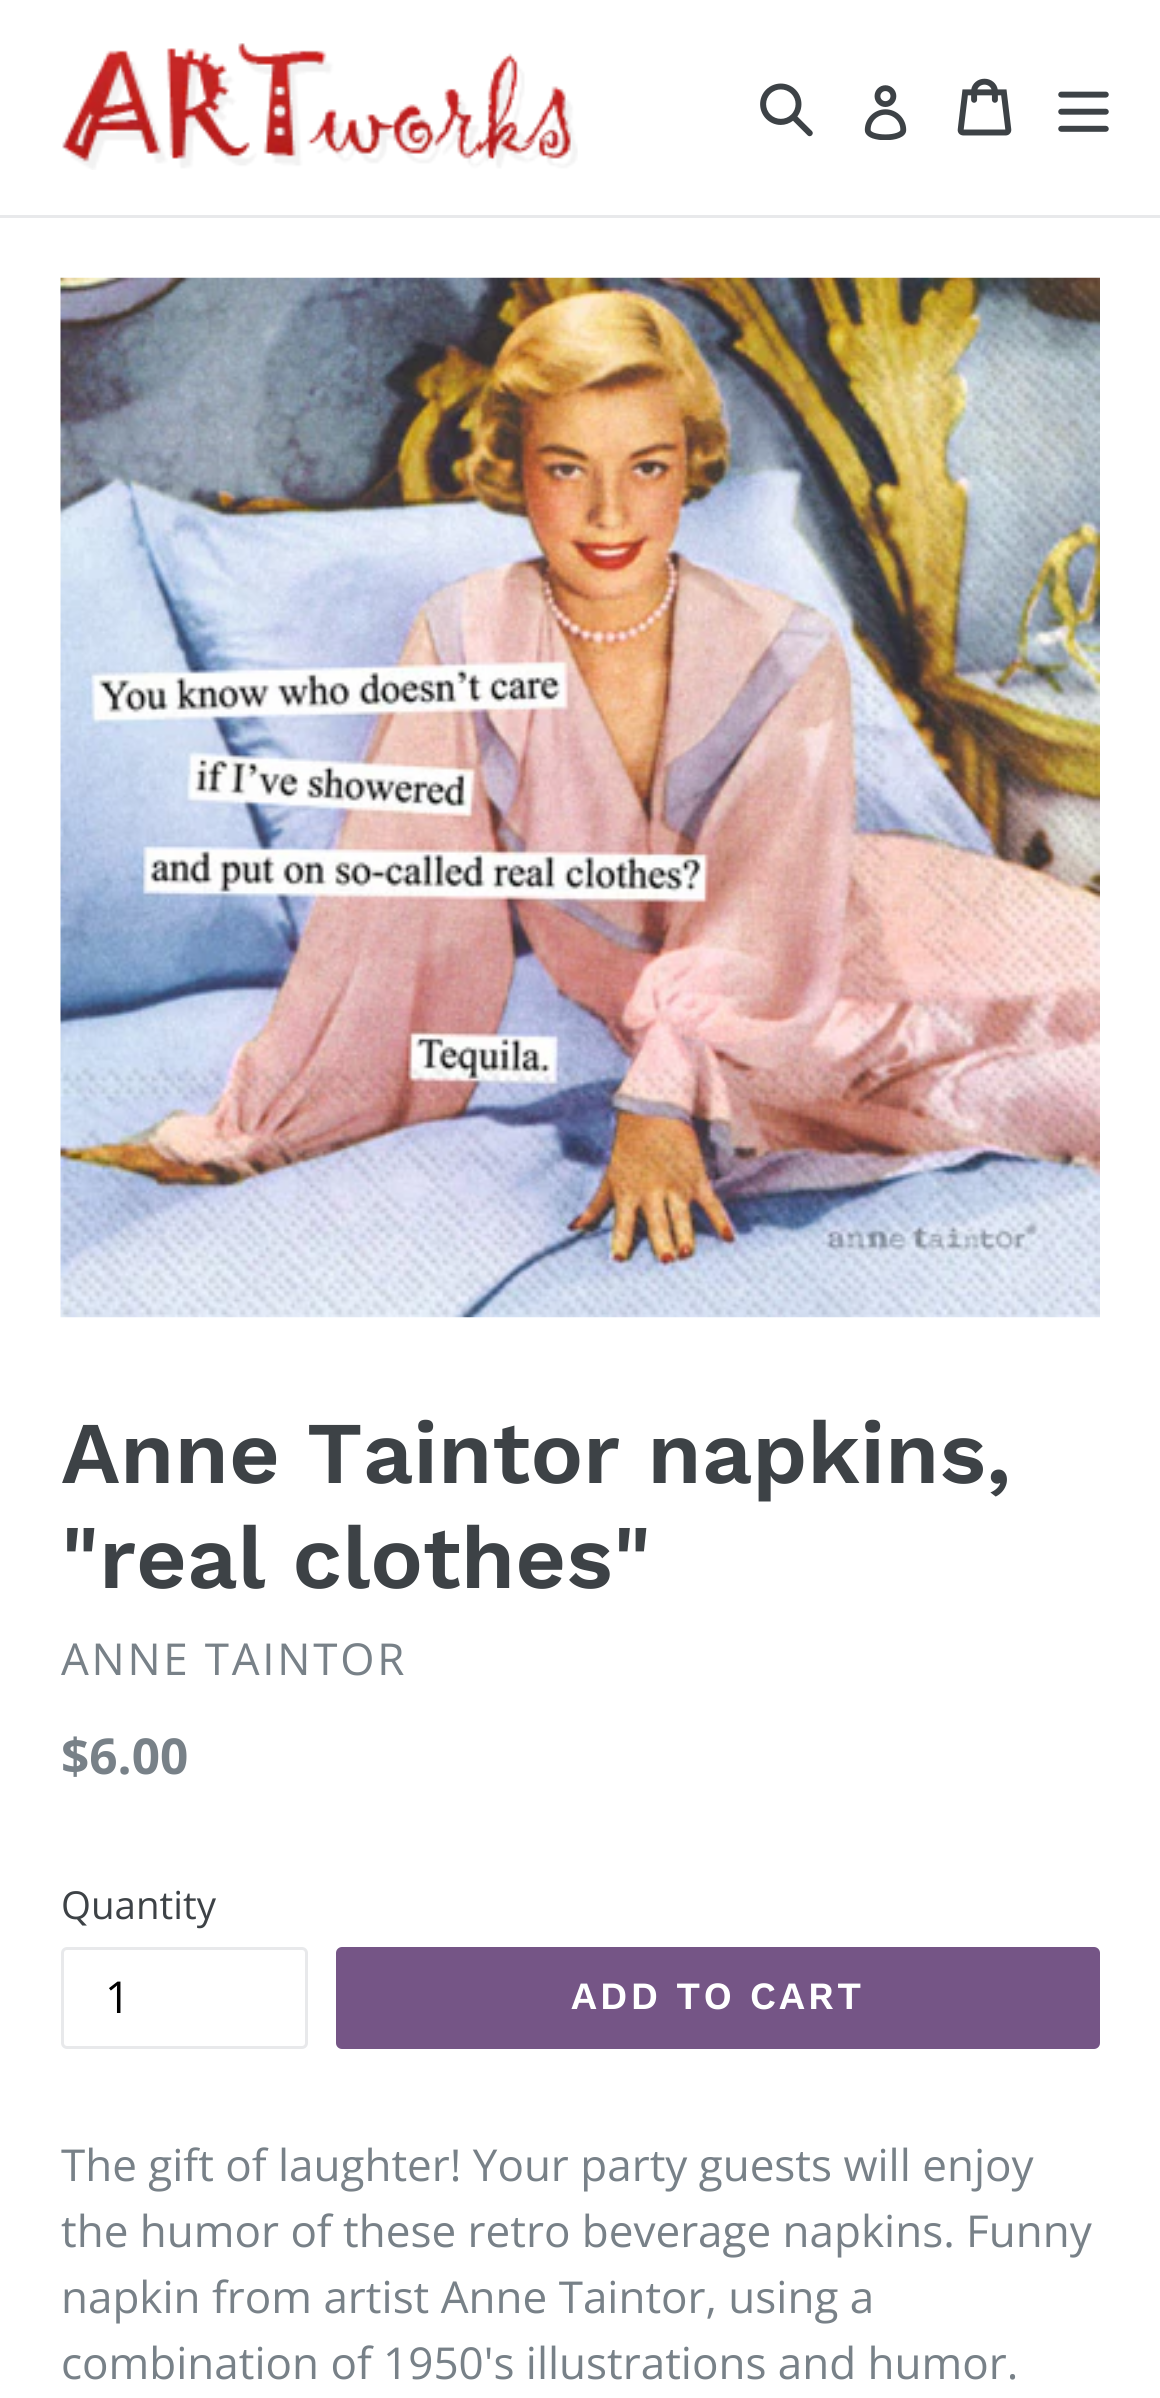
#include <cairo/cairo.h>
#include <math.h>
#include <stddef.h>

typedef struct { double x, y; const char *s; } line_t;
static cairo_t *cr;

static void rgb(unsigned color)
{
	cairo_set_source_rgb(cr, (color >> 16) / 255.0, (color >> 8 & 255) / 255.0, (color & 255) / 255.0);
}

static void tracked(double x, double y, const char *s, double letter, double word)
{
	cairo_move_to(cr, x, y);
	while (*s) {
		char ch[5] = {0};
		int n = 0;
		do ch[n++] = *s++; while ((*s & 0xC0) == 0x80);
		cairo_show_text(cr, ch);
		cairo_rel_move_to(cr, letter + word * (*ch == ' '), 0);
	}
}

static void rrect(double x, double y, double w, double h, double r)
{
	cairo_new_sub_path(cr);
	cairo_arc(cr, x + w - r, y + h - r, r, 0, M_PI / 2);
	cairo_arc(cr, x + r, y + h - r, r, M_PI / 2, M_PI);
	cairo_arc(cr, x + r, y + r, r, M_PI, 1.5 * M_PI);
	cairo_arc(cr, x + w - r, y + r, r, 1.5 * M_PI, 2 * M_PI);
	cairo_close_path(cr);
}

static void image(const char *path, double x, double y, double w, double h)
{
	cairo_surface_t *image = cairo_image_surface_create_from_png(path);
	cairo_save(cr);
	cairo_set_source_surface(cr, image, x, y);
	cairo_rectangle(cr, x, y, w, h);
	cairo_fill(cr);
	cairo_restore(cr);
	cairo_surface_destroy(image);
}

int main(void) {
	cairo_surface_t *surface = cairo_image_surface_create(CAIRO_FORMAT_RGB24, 1160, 2398);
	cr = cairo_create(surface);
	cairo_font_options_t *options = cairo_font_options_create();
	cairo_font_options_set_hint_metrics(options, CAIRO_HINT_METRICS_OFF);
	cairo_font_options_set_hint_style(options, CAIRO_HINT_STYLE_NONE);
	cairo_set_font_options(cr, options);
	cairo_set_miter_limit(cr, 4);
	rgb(0xffffff);
	cairo_paint(cr);
	rgb(0xe8e9eb);
	cairo_rectangle(cr, 0, 215, 1160, 3);
	cairo_fill(cr);
	image("img/1.png", 62, 43, 516, 127);
	image("img/2.png", 760, 83, 53, 54);
	image("img/3.png", 864, 85, 43, 55);
	image("img/4.png", 957, 78, 55, 58);
	image("img/5.png", 1058, 91, 51, 41);
	image("img/6.png", 60, 277, 1040, 1041);
	rrect(62.5, 1948.5, 244, 99, 4.5);
	cairo_set_line_width(cr, 3);
	cairo_stroke(cr);
	rgb(0x755586);
	rrect(336, 1947, 764, 102, 6);
	cairo_fill(cr);
	cairo_select_font_face(cr, "Work Sans SemiBold", CAIRO_FONT_SLANT_NORMAL, CAIRO_FONT_WEIGHT_NORMAL);
	cairo_set_font_size(cr, 88);
	rgb(0x3d4246);
	cairo_move_to(cr, 61, 1483);
	cairo_show_text(cr, "Anne Taintor napkins,");
	cairo_move_to(cr, 61, 1588);
	cairo_show_text(cr, "\"real clothes\"");
	cairo_select_font_face(cr, "Open Sans", CAIRO_FONT_SLANT_NORMAL, CAIRO_FONT_WEIGHT_NORMAL);
	cairo_set_font_size(cr, 44);
	rgb(0x788188);
	tracked(61, 1675, "ANNE TAINTOR", 2.75, 0);
	cairo_select_font_face(cr, "Open Sans", CAIRO_FONT_SLANT_NORMAL, CAIRO_FONT_WEIGHT_BOLD);
	cairo_set_font_size(cr, 49.5);
	cairo_move_to(cr, 61, 1774);
	cairo_show_text(cr, "$6.00");
	cairo_select_font_face(cr, "Open Sans", CAIRO_FONT_SLANT_NORMAL, CAIRO_FONT_WEIGHT_NORMAL);
	cairo_set_font_size(cr, 38.5);
	rgb(0x3d4246);
	cairo_move_to(cr, 61, 1919);
	cairo_show_text(cr, "Quantity");
	cairo_set_font_size(cr, 44);
	rgb(0x000000);
	cairo_move_to(cr, 105, 2013);
	cairo_show_text(cr, "1");
	cairo_select_font_face(cr, "Work Sans SemiBold", CAIRO_FONT_SLANT_NORMAL, CAIRO_FONT_WEIGHT_NORMAL);
	cairo_set_font_size(cr, 38.5);
	rgb(0xffffff);
	tracked(571, 2009, "ADD TO CART", 3, 0);
	cairo_select_font_face(cr, "Open Sans", CAIRO_FONT_SLANT_NORMAL, CAIRO_FONT_WEIGHT_NORMAL);
	cairo_set_font_size(cr, 44);
	rgb(0x788188);
	{
		static const line_t items[] = {
			{61, 2181, "The gift of laughter! Your party guests will enjoy"},
			{61, 2247, "the humor of these retro beverage napkins. Funny"},
			{61, 2313, "napkin from artist Anne Taintor, using a"},
			{61, 2379, "combination of 1950's illustrations and humor."},
		};
		for (size_t i = 0; i < sizeof items / sizeof *items; i++) {
			cairo_move_to(cr, items[i].x, items[i].y);
			cairo_show_text(cr, items[i].s);
		}
	}
	cairo_surface_write_to_png(surface, "page.png");
	cairo_font_options_destroy(options);
	cairo_destroy(cr);
	cairo_surface_destroy(surface);
	return 0;
}
